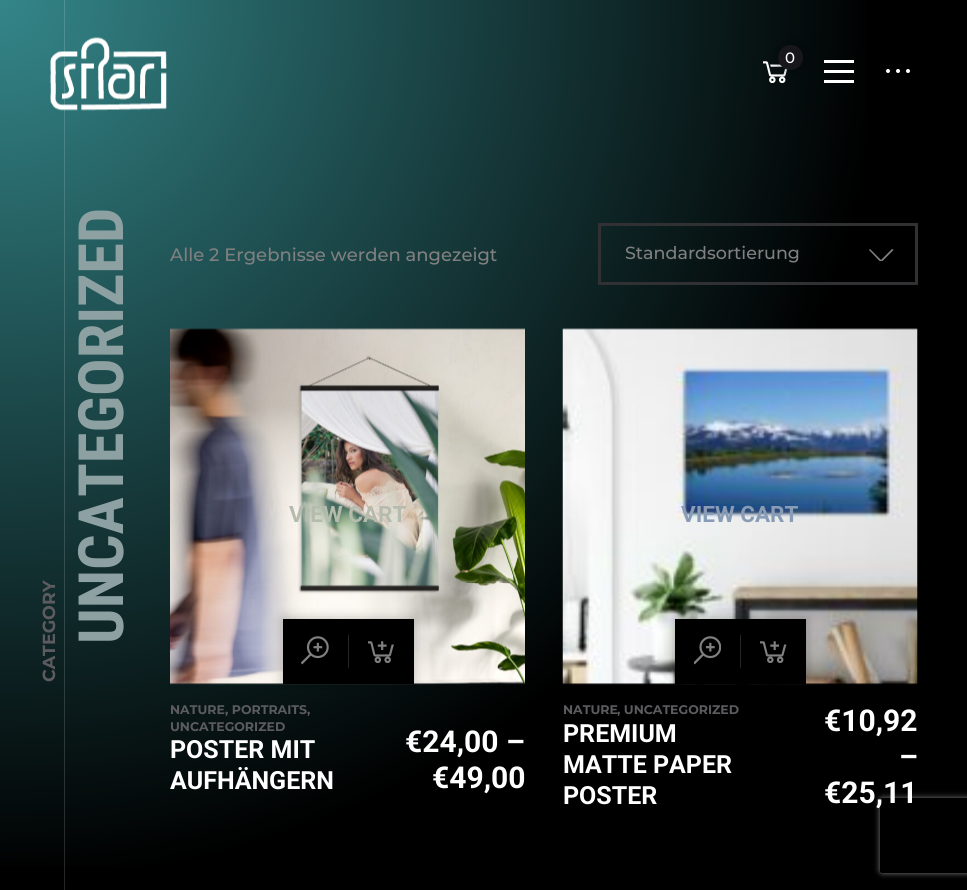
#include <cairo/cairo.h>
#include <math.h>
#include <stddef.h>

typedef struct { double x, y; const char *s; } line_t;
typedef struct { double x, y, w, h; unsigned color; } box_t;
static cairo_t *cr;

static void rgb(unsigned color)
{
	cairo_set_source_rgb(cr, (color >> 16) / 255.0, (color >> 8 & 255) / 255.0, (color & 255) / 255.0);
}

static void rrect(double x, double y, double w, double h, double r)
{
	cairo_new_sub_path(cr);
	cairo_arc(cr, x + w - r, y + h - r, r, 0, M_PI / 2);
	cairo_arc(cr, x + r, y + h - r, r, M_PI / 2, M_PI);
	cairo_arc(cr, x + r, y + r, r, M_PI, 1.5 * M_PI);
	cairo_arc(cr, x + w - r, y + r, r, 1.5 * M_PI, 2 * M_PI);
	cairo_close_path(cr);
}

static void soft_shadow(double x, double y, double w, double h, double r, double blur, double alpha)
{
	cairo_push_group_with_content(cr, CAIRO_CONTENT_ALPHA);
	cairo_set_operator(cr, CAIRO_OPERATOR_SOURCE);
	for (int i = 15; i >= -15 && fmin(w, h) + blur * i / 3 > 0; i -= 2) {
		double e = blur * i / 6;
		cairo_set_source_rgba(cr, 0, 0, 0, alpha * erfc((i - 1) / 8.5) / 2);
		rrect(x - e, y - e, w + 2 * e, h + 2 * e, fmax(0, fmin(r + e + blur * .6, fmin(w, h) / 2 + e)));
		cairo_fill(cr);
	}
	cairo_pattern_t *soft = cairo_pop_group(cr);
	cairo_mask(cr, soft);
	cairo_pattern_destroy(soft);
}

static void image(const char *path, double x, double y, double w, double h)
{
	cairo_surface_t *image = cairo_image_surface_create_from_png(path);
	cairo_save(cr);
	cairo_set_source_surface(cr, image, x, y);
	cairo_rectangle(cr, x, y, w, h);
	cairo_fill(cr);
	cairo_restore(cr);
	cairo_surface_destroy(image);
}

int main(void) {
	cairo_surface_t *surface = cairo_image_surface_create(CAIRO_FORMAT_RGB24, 967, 890);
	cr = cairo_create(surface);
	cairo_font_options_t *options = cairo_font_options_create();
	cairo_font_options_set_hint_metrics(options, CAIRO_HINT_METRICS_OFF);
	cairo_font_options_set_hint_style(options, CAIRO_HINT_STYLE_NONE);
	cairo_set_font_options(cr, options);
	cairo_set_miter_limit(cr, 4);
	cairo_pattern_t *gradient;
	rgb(0x000000);
	cairo_paint(cr);
	gradient = cairo_pattern_create_radial(0, 0, 0, 0, 0, 1259);
	cairo_pattern_add_color_stop_rgba(gradient, 0, 0.204, 0.525, 0.537, 1);
	cairo_pattern_add_color_stop_rgba(gradient, 0.7, 0, 0, 0, 1);
	cairo_set_source(cr, gradient);
	cairo_pattern_destroy(gradient);
	cairo_rectangle(cr, 0, 0, 866, 866);
	cairo_fill(cr);
	gradient = cairo_pattern_create_radial(0, 0, 0, 0, 0, 1259);
	cairo_pattern_add_color_stop_rgba(gradient, 0, 0.322, 0.596, 0.608, 1);
	cairo_pattern_add_color_stop_rgba(gradient, 0.7, 0.149, 0.149, 0.149, 1);
	cairo_set_source(cr, gradient);
	cairo_pattern_destroy(gradient);
	cairo_rectangle(cr, 64, 0, 1, 890);
	cairo_fill(cr);
	image("img/1.png", 50, 37, 117, 74);
	image("img/2.png", 763, 61, 25, 22);
	rgb(0x000000);
	soft_shadow(778, 45, 25, 25, 12.5, 6, 0.45);
	rgb(0x17171b);
	cairo_arc(cr, 790.5, 57.5, 12.5, 0, 2 * M_PI);
	cairo_fill(cr);
	{
		static const box_t items[] = {
			{824, 60, 30, 3, 0xffffff},
			{824, 70, 30, 3, 0xffffff},
			{824, 80, 30, 3, 0xffffff},
		};
		for (size_t i = 0; i < sizeof items / sizeof *items; i++) {
			rgb(items[i].color);
			cairo_rectangle(cr, items[i].x, items[i].y, items[i].w, items[i].h);
			cairo_fill(cr);
		}
	}
	cairo_arc(cr, 888, 71, 2, 0, 2 * M_PI);
	cairo_fill(cr);
	cairo_arc(cr, 898, 71, 2, 0, 2 * M_PI);
	cairo_fill(cr);
	cairo_new_path(cr);
	cairo_move_to(cr, 896.5, 71);
	cairo_line_to(cr, 898, 69);
	cairo_line_to(cr, 900, 71);
	cairo_line_to(cr, 898, 72.5);
	cairo_close_path(cr);
	cairo_fill(cr);
	cairo_arc(cr, 908, 71, 2, 0, 2 * M_PI);
	cairo_fill(cr);
	cairo_rectangle(cr, 599.5, 224.5, 317, 59);
	rgb(0x313133);
	cairo_set_line_width(cr, 3);
	cairo_stroke(cr);
	cairo_save(cr);
	cairo_rectangle(cr, 869, 249, 25, 12);
	cairo_clip(cr);
	rgb(0x808080);
	cairo_new_path(cr);
	cairo_move_to(cr, 870, 249);
	cairo_line_to(cr, 881, 260);
	cairo_line_to(cr, 892, 249);
	cairo_line_to(cr, 893.5, 250);
	cairo_line_to(cr, 881, 262.5);
	cairo_line_to(cr, 869, 250);
	cairo_close_path(cr);
	cairo_fill(cr);
	cairo_restore(cr);
	image("img/3.png", 170, 328, 355, 357);
	rgb(0x000000);
	soft_shadow(283, 619, 131, 65, 0, 6, 0.25);
	rgb(0x000000);
	cairo_rectangle(cr, 283, 619, 131, 65);
	cairo_fill(cr);
	image("img/4.png", 301, 636, 28, 29);
	rgb(0x262626);
	cairo_rectangle(cr, 348, 635, 1, 33);
	cairo_fill(cr);
	image("img/5.png", 368, 641, 26, 22);
	image("img/6.png", 562, 328, 356, 357);
	rgb(0x000000);
	soft_shadow(675, 619, 131, 65, 0, 6, 0.25);
	rgb(0x000000);
	cairo_rectangle(cr, 675, 619, 131, 65);
	cairo_fill(cr);
	image("img/7.png", 694, 636, 27, 29);
	rgb(0x262626);
	cairo_rectangle(cr, 740, 635, 1, 33);
	cairo_fill(cr);
	image("img/8.png", 760, 641, 27, 22);
	cairo_save(cr);
	cairo_set_fill_rule(cr, CAIRO_FILL_RULE_EVEN_ODD);
	cairo_new_path(cr);
	cairo_move_to(cr, 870, 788);
	cairo_line_to(cr, 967, 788);
	cairo_line_to(cr, 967, 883);
	cairo_line_to(cr, 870, 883);
	cairo_close_path(cr);
	cairo_move_to(cr, 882.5, 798);
	cairo_line_to(cr, 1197.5, 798);
	cairo_curve_to(cr, 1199, 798, 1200, 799, 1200, 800.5);
	cairo_line_to(cr, 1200, 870.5);
	cairo_curve_to(cr, 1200, 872, 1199, 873, 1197.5, 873);
	cairo_line_to(cr, 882.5, 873);
	cairo_curve_to(cr, 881, 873, 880, 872, 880, 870.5);
	cairo_line_to(cr, 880, 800.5);
	cairo_curve_to(cr, 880, 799, 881, 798, 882.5, 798);
	cairo_close_path(cr);
	cairo_clip(cr);
	rgb(0x808080);
	soft_shadow(880, 798, 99, 75, 2.5, 3, 1);
	cairo_restore(cr);
	cairo_select_font_face(cr, "Montserrat Medium", CAIRO_FONT_SLANT_NORMAL, CAIRO_FONT_WEIGHT_NORMAL);
	cairo_set_font_size(cr, 15);
	rgb(0xffffff);
	cairo_move_to(cr, 785, 63);
	cairo_show_text(cr, "0");
	cairo_select_font_face(cr, "Montserrat", CAIRO_FONT_SLANT_NORMAL, CAIRO_FONT_WEIGHT_BOLD);
	cairo_set_font_size(cr, 17.5);
	rgb(0x5c5c60);
	cairo_save(cr);
	cairo_translate(cr, 55, 682);
	cairo_rotate(cr, -90 * M_PI / 180);
	cairo_move_to(cr, 0, 0);
	cairo_show_text(cr, "CATEGORY");
	cairo_restore(cr);
	cairo_select_font_face(cr, "Roboto Condensed", CAIRO_FONT_SLANT_NORMAL, CAIRO_FONT_WEIGHT_BOLD);
	cairo_set_font_size(cr, 62.5);
	rgb(0x8da1a2);
	cairo_save(cr);
	cairo_translate(cr, 123, 644);
	cairo_rotate(cr, -90 * M_PI / 180);
	cairo_move_to(cr, 0, 0);
	cairo_show_text(cr, "UNCATEGORIZED");
	cairo_restore(cr);
	cairo_select_font_face(cr, "Montserrat Medium", CAIRO_FONT_SLANT_NORMAL, CAIRO_FONT_WEIGHT_NORMAL);
	cairo_set_font_size(cr, 18);
	rgb(0x808080);
	cairo_move_to(cr, 170, 261);
	cairo_show_text(cr, "Alle 2 Ergebnisse werden angezeigt");
	cairo_set_font_size(cr, 17.5);
	cairo_move_to(cr, 625, 259);
	cairo_show_text(cr, "Standardsortierung");
	cairo_select_font_face(cr, "Roboto", CAIRO_FONT_SLANT_NORMAL, CAIRO_FONT_WEIGHT_BOLD);
	cairo_set_font_size(cr, 22.5);
	rgb(0xb5bcae);
	cairo_move_to(cr, 289, 522);
	cairo_show_text(cr, "VIEW CART");
	cairo_select_font_face(cr, "Montserrat", CAIRO_FONT_SLANT_NORMAL, CAIRO_FONT_WEIGHT_BOLD);
	cairo_set_font_size(cr, 12.5);
	rgb(0x5c5c60);
	{
		static const line_t items[] = {
			{170, 714, "NATURE"},
			{225, 714, ", PORTRAITS"},
			{307, 714, ","},
			{170, 731, "UNCATEGORIZED"},
		};
		for (size_t i = 0; i < sizeof items / sizeof *items; i++) {
			cairo_move_to(cr, items[i].x, items[i].y);
			cairo_show_text(cr, items[i].s);
		}
	}
	cairo_select_font_face(cr, "Roboto", CAIRO_FONT_SLANT_NORMAL, CAIRO_FONT_WEIGHT_BOLD);
	cairo_set_font_size(cr, 25);
	rgb(0xffffff);
	cairo_move_to(cr, 170, 758);
	cairo_show_text(cr, "POSTER MIT");
	cairo_move_to(cr, 170, 789);
	cairo_show_text(cr, "AUFHÄNGERN");
	cairo_set_font_size(cr, 30);
	cairo_move_to(cr, 405, 752);
	cairo_show_text(cr, "€24,00 –");
	cairo_move_to(cr, 432, 788);
	cairo_show_text(cr, "€49,00");
	cairo_set_font_size(cr, 22.5);
	rgb(0x899cb5);
	cairo_move_to(cr, 681, 522);
	cairo_show_text(cr, "VIEW CART");
	cairo_select_font_face(cr, "Montserrat", CAIRO_FONT_SLANT_NORMAL, CAIRO_FONT_WEIGHT_BOLD);
	cairo_set_font_size(cr, 12.5);
	rgb(0x5c5c60);
	cairo_move_to(cr, 563, 714);
	cairo_show_text(cr, "NATURE");
	cairo_move_to(cr, 617, 714);
	cairo_show_text(cr, ", UNCATEGORIZED");
	cairo_select_font_face(cr, "Roboto", CAIRO_FONT_SLANT_NORMAL, CAIRO_FONT_WEIGHT_BOLD);
	cairo_set_font_size(cr, 25);
	rgb(0xffffff);
	{
		static const line_t items[] = {
			{563, 742, "PREMIUM"},
			{563, 773, "MATTE PAPER"},
			{563, 804, "POSTER"},
		};
		for (size_t i = 0; i < sizeof items / sizeof *items; i++) {
			cairo_move_to(cr, items[i].x, items[i].y);
			cairo_show_text(cr, items[i].s);
		}
	}
	cairo_set_font_size(cr, 30);
	{
		static const line_t items[] = {
			{824, 731, "€10,92"},
			{899, 767, "–"},
			{824, 803, "€25,11"},
		};
		for (size_t i = 0; i < sizeof items / sizeof *items; i++) {
			cairo_move_to(cr, items[i].x, items[i].y);
			cairo_show_text(cr, items[i].s);
		}
	}
	cairo_surface_write_to_png(surface, "page.png");
	cairo_font_options_destroy(options);
	cairo_destroy(cr);
	cairo_surface_destroy(surface);
	return 0;
}
